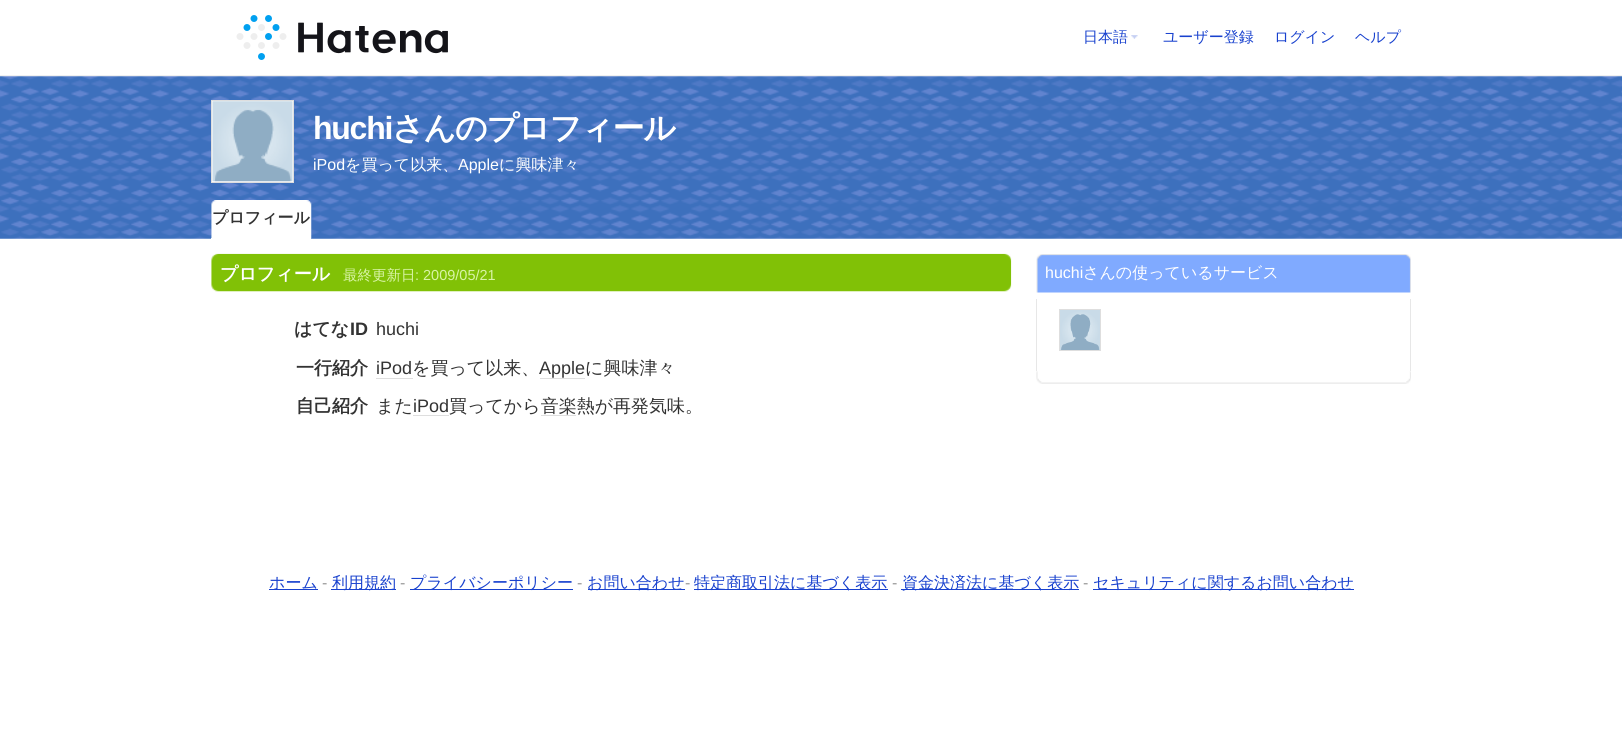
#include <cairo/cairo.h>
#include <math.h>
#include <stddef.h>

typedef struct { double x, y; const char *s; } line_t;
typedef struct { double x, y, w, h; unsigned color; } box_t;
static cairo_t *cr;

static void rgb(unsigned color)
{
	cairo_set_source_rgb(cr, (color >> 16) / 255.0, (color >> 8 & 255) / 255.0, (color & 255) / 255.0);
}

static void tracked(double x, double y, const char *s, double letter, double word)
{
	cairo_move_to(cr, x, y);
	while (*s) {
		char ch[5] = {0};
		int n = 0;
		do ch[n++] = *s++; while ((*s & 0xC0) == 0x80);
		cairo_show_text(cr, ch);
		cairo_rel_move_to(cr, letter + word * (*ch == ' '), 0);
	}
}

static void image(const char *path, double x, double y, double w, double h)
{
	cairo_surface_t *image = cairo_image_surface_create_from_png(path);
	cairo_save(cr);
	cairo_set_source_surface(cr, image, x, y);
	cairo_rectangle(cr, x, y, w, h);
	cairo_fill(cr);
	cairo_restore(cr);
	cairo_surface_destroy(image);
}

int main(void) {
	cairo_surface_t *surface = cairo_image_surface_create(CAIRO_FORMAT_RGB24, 1622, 741);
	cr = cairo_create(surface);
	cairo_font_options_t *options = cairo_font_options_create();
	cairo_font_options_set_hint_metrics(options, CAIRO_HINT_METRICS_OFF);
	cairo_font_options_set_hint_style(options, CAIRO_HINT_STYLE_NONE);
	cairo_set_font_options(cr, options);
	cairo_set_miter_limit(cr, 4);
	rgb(0xffffff);
	cairo_paint(cr);
	rgb(0xf0f0f0);
	cairo_rectangle(cr, 0, 75, 1622, 1);
	cairo_fill(cr);
	image("img/1.png", 236, 15, 212, 45);
	image("img/2.png", 1131, 35, 7, 4);
	image("img/3.png", 0, 76, 1622, 163);
	rgb(0xffffff);
	cairo_rectangle(cr, 211.5, 100.5, 82, 82);
	cairo_fill_preserve(cr);
	rgb(0xdedede);
	cairo_set_line_width(cr, 1);
	cairo_stroke(cr);
	image("img/4.png", 212, 101, 81, 81);
	image("img/5.png", 211, 200, 101, 39);
	rgb(0xffffff);
	cairo_rectangle(cr, 211, 238, 100, 1);
	cairo_fill(cr);
	image("img/6.png", 211, 253, 801, 39);
	{
		static const box_t items[] = {
			{376, 378, 37, 1, 0xdedede},
			{540, 378, 45, 1, 0xdedede},
			{413, 415, 36, 1, 0xdedede},
			{541, 415, 35, 1, 0xdedede},
		};
		for (size_t i = 0; i < sizeof items / sizeof *items; i++) {
			rgb(items[i].color);
			cairo_rectangle(cr, items[i].x, items[i].y, items[i].w, items[i].h);
			cairo_fill(cr);
		}
	}
	image("img/7.png", 1036, 371, 375, 13);
	image("img/8.png", 1036, 254, 375, 39);
	rgb(0xe7e7e7);
	cairo_rectangle(cr, 1410, 299, 1, 72);
	cairo_fill(cr);
	cairo_rectangle(cr, 1036, 299, 1, 72);
	cairo_fill(cr);
	cairo_rectangle(cr, 1059.5, 309.5, 41, 41);
	rgb(0xdedede);
	cairo_stroke(cr);
	image("img/9.png", 1060, 310, 40, 40);
	{
		static const box_t items[] = {
			{269, 589, 49, 1, 0x1841ce},
			{331, 589, 65, 1, 0x1841ce},
			{410, 589, 163, 1, 0x1841ce},
			{588, 589, 97, 1, 0x1841ce},
			{694, 589, 194, 1, 0x1841ce},
			{901, 589, 178, 1, 0x1841ce},
			{1093, 589, 261, 1, 0x1841ce},
		};
		for (size_t i = 0; i < sizeof items / sizeof *items; i++) {
			rgb(items[i].color);
			cairo_rectangle(cr, items[i].x, items[i].y, items[i].w, items[i].h);
			cairo_fill(cr);
		}
	}
	cairo_select_font_face(cr, "WenQuanYi Zen Hei Medium", CAIRO_FONT_SLANT_NORMAL, CAIRO_FONT_WEIGHT_NORMAL);
	cairo_set_font_size(cr, 15);
	{
		static const line_t items[] = {
			{1083, 42, "日本語"},
			{1163, 42, "ユーザー登録"},
			{1274, 42, "ログイン"},
			{1355, 42, "ヘルプ"},
		};
		for (size_t i = 0; i < sizeof items / sizeof *items; i++) {
			cairo_move_to(cr, items[i].x, items[i].y);
			cairo_show_text(cr, items[i].s);
		}
	}
	cairo_select_font_face(cr, "Liberation Sans", CAIRO_FONT_SLANT_NORMAL, CAIRO_FONT_WEIGHT_BOLD);
	cairo_set_font_size(cr, 32);
	rgb(0xffffff);
	tracked(313, 139, "huchi", -1.25, 0);
	cairo_select_font_face(cr, "WenQuanYi Zen Hei", CAIRO_FONT_SLANT_NORMAL, CAIRO_FONT_WEIGHT_BOLD);
	tracked(392, 139, "さんのプロフィール", -1.25, 0);
	cairo_select_font_face(cr, "Liberation Sans", CAIRO_FONT_SLANT_NORMAL, CAIRO_FONT_WEIGHT_NORMAL);
	cairo_set_font_size(cr, 16);
	cairo_move_to(cr, 313, 170);
	cairo_show_text(cr, "iPod");
	cairo_select_font_face(cr, "WenQuanYi Zen Hei Medium", CAIRO_FONT_SLANT_NORMAL, CAIRO_FONT_WEIGHT_NORMAL);
	cairo_move_to(cr, 345, 170);
	cairo_show_text(cr, "を買って以来、");
	cairo_select_font_face(cr, "Liberation Sans", CAIRO_FONT_SLANT_NORMAL, CAIRO_FONT_WEIGHT_NORMAL);
	cairo_move_to(cr, 458, 170);
	cairo_show_text(cr, "Apple");
	cairo_select_font_face(cr, "WenQuanYi Zen Hei Medium", CAIRO_FONT_SLANT_NORMAL, CAIRO_FONT_WEIGHT_NORMAL);
	cairo_move_to(cr, 499, 170);
	cairo_show_text(cr, "に興味津々");
	cairo_select_font_face(cr, "WenQuanYi Zen Hei", CAIRO_FONT_SLANT_NORMAL, CAIRO_FONT_WEIGHT_BOLD);
	rgb(0x333333);
	cairo_move_to(cr, 212, 223);
	cairo_show_text(cr, "プロフィール");
	cairo_set_font_size(cr, 18);
	rgb(0xffffff);
	cairo_move_to(cr, 220, 280);
	cairo_show_text(cr, "プロフィール");
	cairo_select_font_face(cr, "WenQuanYi Zen Hei Medium", CAIRO_FONT_SLANT_NORMAL, CAIRO_FONT_WEIGHT_NORMAL);
	cairo_set_font_size(cr, 14.5);
	rgb(0xd9f4a6);
	cairo_move_to(cr, 343, 280);
	cairo_show_text(cr, "最終更新日");
	cairo_select_font_face(cr, "Liberation Sans", CAIRO_FONT_SLANT_NORMAL, CAIRO_FONT_WEIGHT_NORMAL);
	cairo_move_to(cr, 415, 280);
	cairo_show_text(cr, ": 2009/05/21");
	cairo_select_font_face(cr, "WenQuanYi Zen Hei", CAIRO_FONT_SLANT_NORMAL, CAIRO_FONT_WEIGHT_BOLD);
	cairo_set_font_size(cr, 18);
	rgb(0x333333);
	cairo_move_to(cr, 294, 335);
	cairo_show_text(cr, "はてな");
	cairo_select_font_face(cr, "Liberation Sans", CAIRO_FONT_SLANT_NORMAL, CAIRO_FONT_WEIGHT_BOLD);
	cairo_move_to(cr, 350, 335);
	cairo_show_text(cr, "ID");
	cairo_select_font_face(cr, "Liberation Sans", CAIRO_FONT_SLANT_NORMAL, CAIRO_FONT_WEIGHT_NORMAL);
	cairo_move_to(cr, 376, 335);
	cairo_show_text(cr, "huchi");
	cairo_select_font_face(cr, "WenQuanYi Zen Hei", CAIRO_FONT_SLANT_NORMAL, CAIRO_FONT_WEIGHT_BOLD);
	cairo_move_to(cr, 296, 374);
	cairo_show_text(cr, "一行紹介");
	cairo_select_font_face(cr, "Liberation Sans", CAIRO_FONT_SLANT_NORMAL, CAIRO_FONT_WEIGHT_NORMAL);
	cairo_move_to(cr, 376, 374);
	cairo_show_text(cr, "iPod");
	cairo_select_font_face(cr, "WenQuanYi Zen Hei Medium", CAIRO_FONT_SLANT_NORMAL, CAIRO_FONT_WEIGHT_NORMAL);
	cairo_move_to(cr, 412, 374);
	cairo_show_text(cr, "を買って以来、");
	cairo_select_font_face(cr, "Liberation Sans", CAIRO_FONT_SLANT_NORMAL, CAIRO_FONT_WEIGHT_NORMAL);
	cairo_move_to(cr, 539, 374);
	cairo_show_text(cr, "Apple");
	cairo_select_font_face(cr, "WenQuanYi Zen Hei Medium", CAIRO_FONT_SLANT_NORMAL, CAIRO_FONT_WEIGHT_NORMAL);
	cairo_move_to(cr, 585, 374);
	cairo_show_text(cr, "に興味津々");
	cairo_select_font_face(cr, "WenQuanYi Zen Hei", CAIRO_FONT_SLANT_NORMAL, CAIRO_FONT_WEIGHT_BOLD);
	cairo_move_to(cr, 296, 412);
	cairo_show_text(cr, "自己紹介");
	cairo_select_font_face(cr, "WenQuanYi Zen Hei Medium", CAIRO_FONT_SLANT_NORMAL, CAIRO_FONT_WEIGHT_NORMAL);
	cairo_move_to(cr, 376, 412);
	cairo_show_text(cr, "また");
	cairo_select_font_face(cr, "Liberation Sans", CAIRO_FONT_SLANT_NORMAL, CAIRO_FONT_WEIGHT_NORMAL);
	cairo_move_to(cr, 413, 412);
	cairo_show_text(cr, "iPod");
	cairo_select_font_face(cr, "WenQuanYi Zen Hei Medium", CAIRO_FONT_SLANT_NORMAL, CAIRO_FONT_WEIGHT_NORMAL);
	cairo_move_to(cr, 449, 412);
	cairo_show_text(cr, "買ってから音楽熱が再発気味。");
	cairo_select_font_face(cr, "Liberation Sans", CAIRO_FONT_SLANT_NORMAL, CAIRO_FONT_WEIGHT_NORMAL);
	cairo_set_font_size(cr, 16);
	rgb(0xffffff);
	cairo_move_to(cr, 1045, 278);
	cairo_show_text(cr, "huchi");
	cairo_select_font_face(cr, "WenQuanYi Zen Hei Medium", CAIRO_FONT_SLANT_NORMAL, CAIRO_FONT_WEIGHT_NORMAL);
	cairo_move_to(cr, 1083, 278);
	cairo_show_text(cr, "さんの使っているサービス");
	rgb(0x1841ce);
	cairo_move_to(cr, 269, 588);
	cairo_show_text(cr, "ホーム");
	cairo_select_font_face(cr, "Liberation Sans", CAIRO_FONT_SLANT_NORMAL, CAIRO_FONT_WEIGHT_NORMAL);
	rgb(0x999999);
	cairo_move_to(cr, 322, 588);
	cairo_show_text(cr, "-");
	cairo_select_font_face(cr, "WenQuanYi Zen Hei Medium", CAIRO_FONT_SLANT_NORMAL, CAIRO_FONT_WEIGHT_NORMAL);
	rgb(0x1841ce);
	cairo_move_to(cr, 332, 588);
	cairo_show_text(cr, "利用規約");
	cairo_select_font_face(cr, "Liberation Sans", CAIRO_FONT_SLANT_NORMAL, CAIRO_FONT_WEIGHT_NORMAL);
	rgb(0x999999);
	cairo_move_to(cr, 400, 588);
	cairo_show_text(cr, "-");
	cairo_select_font_face(cr, "WenQuanYi Zen Hei Medium", CAIRO_FONT_SLANT_NORMAL, CAIRO_FONT_WEIGHT_NORMAL);
	rgb(0x1841ce);
	cairo_move_to(cr, 410, 588);
	cairo_show_text(cr, "プライバシーポリシー");
	cairo_select_font_face(cr, "Liberation Sans", CAIRO_FONT_SLANT_NORMAL, CAIRO_FONT_WEIGHT_NORMAL);
	rgb(0x999999);
	cairo_move_to(cr, 577, 588);
	cairo_show_text(cr, "-");
	cairo_select_font_face(cr, "WenQuanYi Zen Hei Medium", CAIRO_FONT_SLANT_NORMAL, CAIRO_FONT_WEIGHT_NORMAL);
	rgb(0x1841ce);
	cairo_move_to(cr, 587, 588);
	cairo_show_text(cr, "お問い合わせ");
	cairo_select_font_face(cr, "Liberation Sans", CAIRO_FONT_SLANT_NORMAL, CAIRO_FONT_WEIGHT_NORMAL);
	rgb(0x999999);
	cairo_move_to(cr, 685, 588);
	cairo_show_text(cr, "-");
	cairo_select_font_face(cr, "WenQuanYi Zen Hei Medium", CAIRO_FONT_SLANT_NORMAL, CAIRO_FONT_WEIGHT_NORMAL);
	rgb(0x1841ce);
	cairo_move_to(cr, 694, 588);
	cairo_show_text(cr, "特定商取引法に基づく表示");
	cairo_select_font_face(cr, "Liberation Sans", CAIRO_FONT_SLANT_NORMAL, CAIRO_FONT_WEIGHT_NORMAL);
	rgb(0x999999);
	cairo_move_to(cr, 892, 588);
	cairo_show_text(cr, "-");
	cairo_select_font_face(cr, "WenQuanYi Zen Hei Medium", CAIRO_FONT_SLANT_NORMAL, CAIRO_FONT_WEIGHT_NORMAL);
	rgb(0x1841ce);
	cairo_move_to(cr, 902, 588);
	cairo_show_text(cr, "資金決済法に基づく表示");
	cairo_select_font_face(cr, "Liberation Sans", CAIRO_FONT_SLANT_NORMAL, CAIRO_FONT_WEIGHT_NORMAL);
	rgb(0x999999);
	cairo_move_to(cr, 1083, 588);
	cairo_show_text(cr, "-");
	cairo_select_font_face(cr, "WenQuanYi Zen Hei Medium", CAIRO_FONT_SLANT_NORMAL, CAIRO_FONT_WEIGHT_NORMAL);
	rgb(0x1841ce);
	cairo_move_to(cr, 1093, 588);
	cairo_show_text(cr, "セキュリティに関するお問い合わせ");
	cairo_surface_write_to_png(surface, "page.png");
	cairo_font_options_destroy(options);
	cairo_destroy(cr);
	cairo_surface_destroy(surface);
	return 0;
}
